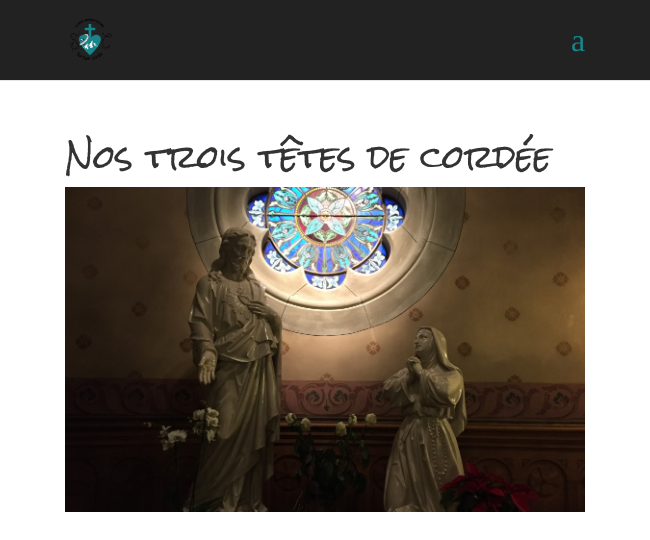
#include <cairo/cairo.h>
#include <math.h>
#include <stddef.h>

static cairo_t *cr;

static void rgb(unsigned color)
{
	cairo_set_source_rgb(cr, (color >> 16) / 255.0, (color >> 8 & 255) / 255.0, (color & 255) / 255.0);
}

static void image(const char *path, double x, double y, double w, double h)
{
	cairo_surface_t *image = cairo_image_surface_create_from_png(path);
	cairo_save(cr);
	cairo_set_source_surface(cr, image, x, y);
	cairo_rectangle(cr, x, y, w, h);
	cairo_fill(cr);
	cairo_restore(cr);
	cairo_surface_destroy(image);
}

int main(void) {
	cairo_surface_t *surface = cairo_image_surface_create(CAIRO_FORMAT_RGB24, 650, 540);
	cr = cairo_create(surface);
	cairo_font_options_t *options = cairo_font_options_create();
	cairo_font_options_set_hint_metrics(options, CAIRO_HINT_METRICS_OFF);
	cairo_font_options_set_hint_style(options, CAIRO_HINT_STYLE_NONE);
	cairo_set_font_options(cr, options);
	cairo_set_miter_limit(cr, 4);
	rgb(0xffffff);
	cairo_paint(cr);
	rgb(0xe6e6e6);
	cairo_rectangle(cr, 0, 80, 650, 1);
	cairo_fill(cr);
	rgb(0x222222);
	cairo_rectangle(cr, 0, 0, 650, 80);
	cairo_fill(cr);
	image("img/1.png", 70, 18, 42, 42);
	image("img/2.png", 65, 187, 520, 325);
	cairo_select_font_face(cr, "Liberation Serif", CAIRO_FONT_SLANT_NORMAL, CAIRO_FONT_WEIGHT_NORMAL);
	cairo_set_font_size(cr, 32);
	rgb(0x168489);
	cairo_move_to(cr, 571, 51);
	cairo_show_text(cr, "a");
	cairo_select_font_face(cr, "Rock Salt", CAIRO_FONT_SLANT_NORMAL, CAIRO_FONT_WEIGHT_NORMAL);
	cairo_set_font_size(cr, 31);
	rgb(0x333333);
	cairo_move_to(cr, 65, 169);
	cairo_show_text(cr, "Nos trois têtes de cordée");
	cairo_surface_write_to_png(surface, "page.png");
	cairo_font_options_destroy(options);
	cairo_destroy(cr);
	cairo_surface_destroy(surface);
	return 0;
}
